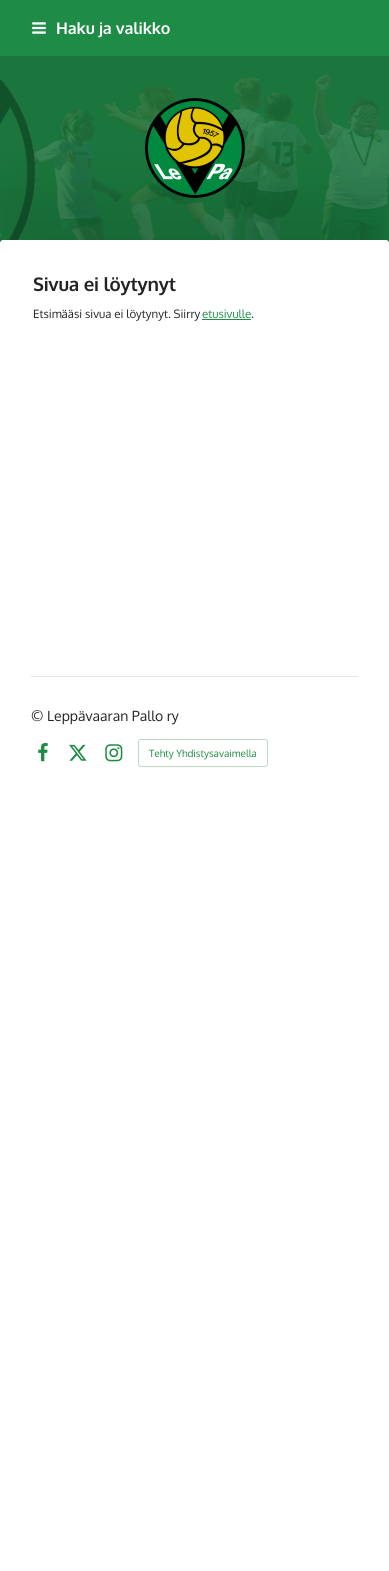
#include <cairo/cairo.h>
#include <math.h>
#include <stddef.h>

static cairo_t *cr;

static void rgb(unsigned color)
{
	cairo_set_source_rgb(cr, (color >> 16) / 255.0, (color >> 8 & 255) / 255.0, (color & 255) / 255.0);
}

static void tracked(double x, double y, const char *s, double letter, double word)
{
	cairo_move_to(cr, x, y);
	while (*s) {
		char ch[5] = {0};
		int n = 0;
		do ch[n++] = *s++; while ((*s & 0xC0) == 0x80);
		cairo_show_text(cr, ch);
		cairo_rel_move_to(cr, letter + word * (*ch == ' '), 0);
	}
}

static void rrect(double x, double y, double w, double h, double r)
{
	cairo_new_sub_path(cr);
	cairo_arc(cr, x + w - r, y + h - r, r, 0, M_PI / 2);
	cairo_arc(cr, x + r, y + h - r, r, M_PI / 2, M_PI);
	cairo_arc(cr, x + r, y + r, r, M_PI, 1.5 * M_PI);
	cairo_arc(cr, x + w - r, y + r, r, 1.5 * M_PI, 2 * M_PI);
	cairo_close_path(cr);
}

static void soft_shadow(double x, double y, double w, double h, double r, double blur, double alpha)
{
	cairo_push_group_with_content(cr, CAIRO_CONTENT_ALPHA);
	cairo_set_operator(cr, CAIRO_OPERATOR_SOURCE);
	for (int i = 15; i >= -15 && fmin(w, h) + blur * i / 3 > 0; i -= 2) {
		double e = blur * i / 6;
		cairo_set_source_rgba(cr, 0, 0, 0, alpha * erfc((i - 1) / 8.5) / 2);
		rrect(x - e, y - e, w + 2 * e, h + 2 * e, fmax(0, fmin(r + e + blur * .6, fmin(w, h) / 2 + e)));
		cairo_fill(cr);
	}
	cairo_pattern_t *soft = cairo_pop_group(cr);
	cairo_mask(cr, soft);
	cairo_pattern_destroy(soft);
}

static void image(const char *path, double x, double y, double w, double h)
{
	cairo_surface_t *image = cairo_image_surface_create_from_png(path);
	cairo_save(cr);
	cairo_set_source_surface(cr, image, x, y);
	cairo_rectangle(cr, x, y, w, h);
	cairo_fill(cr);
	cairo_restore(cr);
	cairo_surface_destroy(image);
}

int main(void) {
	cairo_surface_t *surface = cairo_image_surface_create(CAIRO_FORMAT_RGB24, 389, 1571);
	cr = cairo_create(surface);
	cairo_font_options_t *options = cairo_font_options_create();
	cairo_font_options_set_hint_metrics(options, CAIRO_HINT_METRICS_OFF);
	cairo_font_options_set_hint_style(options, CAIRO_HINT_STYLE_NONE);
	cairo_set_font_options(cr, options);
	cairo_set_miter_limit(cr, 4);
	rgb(0xffffff);
	cairo_paint(cr);
	rgb(0x1e8b46);
	cairo_rectangle(cr, 0, 0, 389, 56);
	cairo_fill(cr);
	image("img/1.png", 32, 22, 14, 12);
	rgb(0x1a763c);
	cairo_rectangle(cr, 0, 56, 389, 18);
	cairo_fill(cr);
	image("img/2.png", 0, 74, 389, 169);
	rgb(0x000000);
	soft_shadow(0, 190, 389, 400, 3, 25, 0.1);
	image("img/3.png", 145, 98, 100, 100);
	rgb(0xffffff);
	rrect(0, 240, 389, 400, 3);
	cairo_fill(cr);
	rgb(0x1e8b46);
	cairo_rectangle(cr, 202, 319, 49, 1);
	cairo_fill(cr);
	rgb(0xe6e6e6);
	cairo_rectangle(cr, 31, 676, 327, 1);
	cairo_fill(cr);
	image("img/4.png", 38, 743, 10, 19);
	image("img/5.png", 69, 744, 18, 17);
	image("img/6.png", 105, 744, 18, 18);
	rrect(138.5, 739.5, 129, 27, 2.5);
	rgb(0xbcdcc8);
	cairo_set_line_width(cr, 1);
	cairo_stroke(cr);
	cairo_select_font_face(cr, "Oxygen", CAIRO_FONT_SLANT_NORMAL, CAIRO_FONT_WEIGHT_BOLD);
	cairo_set_font_size(cr, 16);
	rgb(0xffffff);
	tracked(56, 34, "Haku ja valikko", -0.1, 0);
	cairo_set_font_size(cr, 18.75);
	rgb(0x222222);
	tracked(33, 291, "Sivua ei löytynyt", -0.25, 0);
	cairo_select_font_face(cr, "Oxygen", CAIRO_FONT_SLANT_NORMAL, CAIRO_FONT_WEIGHT_NORMAL);
	cairo_set_font_size(cr, 11.5);
	cairo_move_to(cr, 33, 318);
	cairo_show_text(cr, "Etsimääsi sivua ei löytynyt. Siirry");
	rgb(0x1e8b46);
	cairo_move_to(cr, 202, 318);
	cairo_show_text(cr, "etusivulle");
	rgb(0x222222);
	cairo_move_to(cr, 251, 318);
	cairo_show_text(cr, ".");
	cairo_set_font_size(cr, 14);
	cairo_move_to(cr, 31, 721);
	cairo_show_text(cr, "© Leppävaaran Pallo ry");
	cairo_set_font_size(cr, 10);
	rgb(0x1e8b46);
	cairo_move_to(cr, 149, 757);
	cairo_show_text(cr, "Tehty Yhdistysavaimella");
	cairo_surface_write_to_png(surface, "page.png");
	cairo_font_options_destroy(options);
	cairo_destroy(cr);
	cairo_surface_destroy(surface);
	return 0;
}
